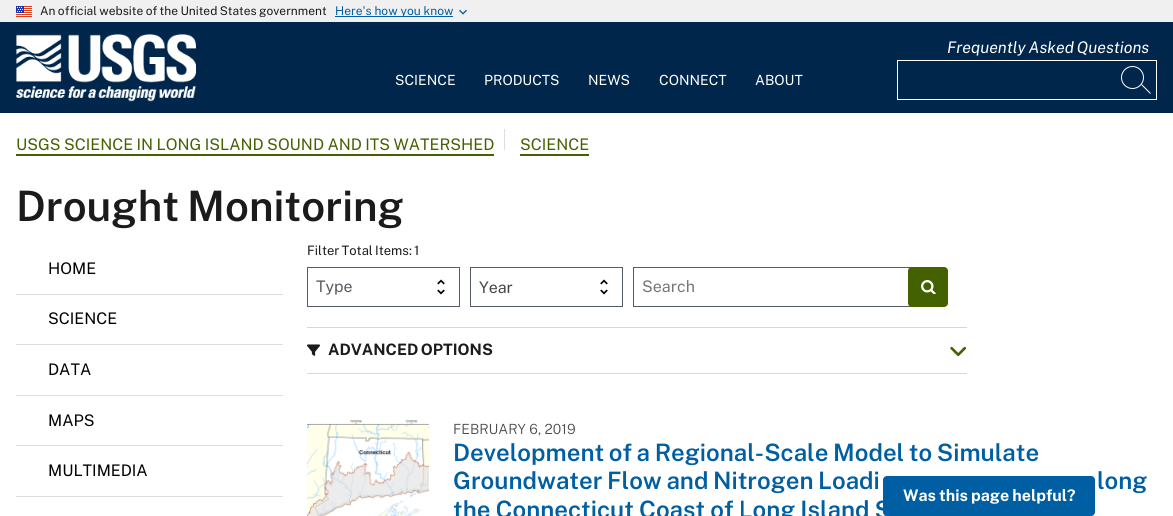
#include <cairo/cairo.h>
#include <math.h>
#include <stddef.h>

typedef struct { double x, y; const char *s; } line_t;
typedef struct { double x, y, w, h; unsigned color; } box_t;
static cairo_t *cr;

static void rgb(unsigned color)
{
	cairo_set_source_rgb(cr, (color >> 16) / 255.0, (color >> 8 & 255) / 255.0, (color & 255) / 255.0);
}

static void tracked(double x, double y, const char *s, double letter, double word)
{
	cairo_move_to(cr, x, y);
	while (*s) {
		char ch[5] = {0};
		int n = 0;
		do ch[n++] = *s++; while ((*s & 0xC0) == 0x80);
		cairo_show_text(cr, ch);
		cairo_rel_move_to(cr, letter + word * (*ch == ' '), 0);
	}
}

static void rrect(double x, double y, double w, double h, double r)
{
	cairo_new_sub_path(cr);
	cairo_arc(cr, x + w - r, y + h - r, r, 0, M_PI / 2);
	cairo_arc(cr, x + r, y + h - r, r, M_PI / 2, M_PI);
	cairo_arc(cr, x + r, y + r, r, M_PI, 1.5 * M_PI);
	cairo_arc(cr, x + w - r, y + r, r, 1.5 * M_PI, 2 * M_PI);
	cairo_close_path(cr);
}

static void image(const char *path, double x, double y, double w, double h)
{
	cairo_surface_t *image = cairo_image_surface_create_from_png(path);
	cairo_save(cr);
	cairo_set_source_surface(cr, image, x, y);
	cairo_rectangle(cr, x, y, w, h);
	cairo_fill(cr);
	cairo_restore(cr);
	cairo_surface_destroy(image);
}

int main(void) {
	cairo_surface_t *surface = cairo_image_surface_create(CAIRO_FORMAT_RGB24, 1173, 516);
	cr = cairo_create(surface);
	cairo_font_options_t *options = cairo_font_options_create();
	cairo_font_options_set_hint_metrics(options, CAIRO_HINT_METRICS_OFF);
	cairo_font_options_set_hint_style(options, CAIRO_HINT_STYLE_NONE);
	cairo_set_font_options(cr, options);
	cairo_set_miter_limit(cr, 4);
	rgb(0xffffff);
	cairo_paint(cr);
	rgb(0xf0f0f0);
	cairo_rectangle(cr, 0, 0, 1173, 22);
	cairo_fill(cr);
	image("img/1.png", 16, 6, 16, 11);
	rgb(0x005ea2);
	cairo_rectangle(cr, 335, 16, 118, 1);
	cairo_fill(cr);
	image("img/2.png", 459, 9, 8, 6);
	rgb(0x00264c);
	cairo_rectangle(cr, 0, 22, 1173, 91);
	cairo_fill(cr);
	image("img/3.png", 16, 34, 180, 68);
	cairo_rectangle(cr, 897.5, 60.5, 259, 39);
	rgb(0xffffff);
	cairo_set_line_width(cr, 1);
	cairo_stroke(cr);
	image("img/4.png", 1121, 66, 30, 28);
	{
		static const box_t items[] = {
			{16, 154, 478, 2, 0x446100},
			{504, 129, 1, 21, 0xdddddd},
			{520, 154, 69, 2, 0x446100},
			{16, 294, 267, 1, 0xdddddd},
			{16, 344, 267, 1, 0xdddddd},
			{16, 395, 267, 1, 0xdddddd},
			{16, 445, 267, 1, 0xdddddd},
			{16, 496, 267, 1, 0xdddddd},
		};
		for (size_t i = 0; i < sizeof items / sizeof *items; i++) {
			rgb(items[i].color);
			cairo_rectangle(cr, items[i].x, items[i].y, items[i].w, items[i].h);
			cairo_fill(cr);
		}
	}
	image("img/5.png", 437, 279, 8, 16);
	cairo_rectangle(cr, 307.5, 267.5, 152, 39);
	rgb(0x565c65);
	cairo_stroke(cr);
	image("img/5.png", 600, 279, 8, 16);
	cairo_rectangle(cr, 470.5, 267.5, 152, 39);
	cairo_stroke(cr);
	cairo_rectangle(cr, 633.5, 267.5, 304, 39);
	cairo_stroke(cr);
	rgb(0x446100);
	rrect(908, 267, 40, 40, 4);
	cairo_fill(cr);
	image("img/6.png", 921, 280, 15, 14);
	rgb(0xd6d7d9);
	cairo_rectangle(cr, 307, 327, 660, 1);
	cairo_fill(cr);
	cairo_rectangle(cr, 307, 373, 660, 1);
	cairo_fill(cr);
	image("img/7.png", 307, 344, 13, 12);
	image("img/8.png", 950, 346, 16, 10);
	image("img/9.png", 307, 420, 122, 96);
	rgb(0x005ea2);
	rrect(883, 476, 212, 40, 4);
	cairo_fill(cr);
	cairo_select_font_face(cr, "Public Sans", CAIRO_FONT_SLANT_NORMAL, CAIRO_FONT_WEIGHT_NORMAL);
	cairo_set_font_size(cr, 12);
	rgb(0x1b1b1b);
	tracked(40, 15, "An official website of the United States government", 0, -0.5);
	rgb(0x005ea2);
	cairo_move_to(cr, 335, 15);
	cairo_show_text(cr, "Here's how you know");
	cairo_select_font_face(cr, "Public Sans", CAIRO_FONT_SLANT_ITALIC, CAIRO_FONT_WEIGHT_NORMAL);
	cairo_set_font_size(cr, 16);
	rgb(0xffffff);
	tracked(947, 53, "Frequently Asked Questions", 0, -1);
	cairo_select_font_face(cr, "Public Sans", CAIRO_FONT_SLANT_NORMAL, CAIRO_FONT_WEIGHT_NORMAL);
	cairo_set_font_size(cr, 14);
	{
		static const line_t items[] = {
			{395, 85, "SCIENCE"},
			{484, 85, "PRODUCTS"},
			{588, 85, "NEWS"},
			{659, 85, "CONNECT"},
			{755, 85, "ABOUT"},
		};
		for (size_t i = 0; i < sizeof items / sizeof *items; i++) {
			cairo_move_to(cr, items[i].x, items[i].y);
			cairo_show_text(cr, items[i].s);
		}
	}
	cairo_set_font_size(cr, 16);
	rgb(0x446100);
	tracked(16, 150, "USGS SCIENCE IN LONG ISLAND SOUND AND ITS WATERSHED", 0, -0.5);
	cairo_move_to(cr, 520, 150);
	cairo_show_text(cr, "SCIENCE");
	cairo_select_font_face(cr, "Public Sans SemiBold", CAIRO_FONT_SLANT_NORMAL, CAIRO_FONT_WEIGHT_NORMAL);
	cairo_set_font_size(cr, 42);
	rgb(0x1b1b1b);
	tracked(16, 221, "Drought Monitoring", 0, -2);
	cairo_select_font_face(cr, "Public Sans", CAIRO_FONT_SLANT_NORMAL, CAIRO_FONT_WEIGHT_NORMAL);
	cairo_set_font_size(cr, 16);
	rgb(0x000000);
	{
		static const line_t items[] = {
			{48, 274, "HOME"},
			{48, 324, "SCIENCE"},
			{48, 375, "DATA"},
			{48, 426, "MAPS"},
			{48, 476, "MULTIMEDIA"},
		};
		for (size_t i = 0; i < sizeof items / sizeof *items; i++) {
			cairo_move_to(cr, items[i].x, items[i].y);
			cairo_show_text(cr, items[i].s);
		}
	}
	cairo_set_font_size(cr, 13);
	rgb(0x1b1b1b);
	tracked(307, 255, "Filter Total Items: 1", 0, -1);
	cairo_set_font_size(cr, 16);
	rgb(0x585c62);
	cairo_move_to(cr, 316, 292);
	cairo_show_text(cr, "Type");
	rgb(0x444444);
	cairo_move_to(cr, 479, 293);
	cairo_show_text(cr, "Year");
	rgb(0x757575);
	cairo_move_to(cr, 642, 292);
	cairo_show_text(cr, "Search");
	cairo_select_font_face(cr, "Public Sans", CAIRO_FONT_SLANT_NORMAL, CAIRO_FONT_WEIGHT_BOLD);
	cairo_set_font_size(cr, 15.75);
	rgb(0x1b1b1b);
	tracked(328, 355, "ADVANCED OPTIONS", 0, -1);
	cairo_select_font_face(cr, "Public Sans Light", CAIRO_FONT_SLANT_NORMAL, CAIRO_FONT_WEIGHT_NORMAL);
	cairo_set_font_size(cr, 14);
	rgb(0x4d4d4d);
	cairo_move_to(cr, 453, 434);
	cairo_show_text(cr, "FEBRUARY 6, 2019");
	cairo_select_font_face(cr, "Public Sans SemiBold", CAIRO_FONT_SLANT_NORMAL, CAIRO_FONT_WEIGHT_NORMAL);
	cairo_set_font_size(cr, 24);
	rgb(0x005ea2);
	{
		static const line_t items[] = {
			{453, 461, "Development of a Regional-Scale Model to Simulate"},
			{453, 489, "Groundwater Flow and Nitrogen Loadi"},
			{1097, 489, "long"},
		};
		for (size_t i = 0; i < sizeof items / sizeof *items; i++) {
			tracked(items[i].x, items[i].y, items[i].s, 0, -1);
		}
	}
	tracked(453, 518, "the Connecticut Coast of Long Island S", 0, -0.5);
	cairo_select_font_face(cr, "Public Sans", CAIRO_FONT_SLANT_NORMAL, CAIRO_FONT_WEIGHT_BOLD);
	cairo_set_font_size(cr, 16);
	rgb(0xffffff);
	tracked(903, 501, "Was this page helpful?", 0, -0.5);
	cairo_surface_write_to_png(surface, "page.png");
	cairo_font_options_destroy(options);
	cairo_destroy(cr);
	cairo_surface_destroy(surface);
	return 0;
}
